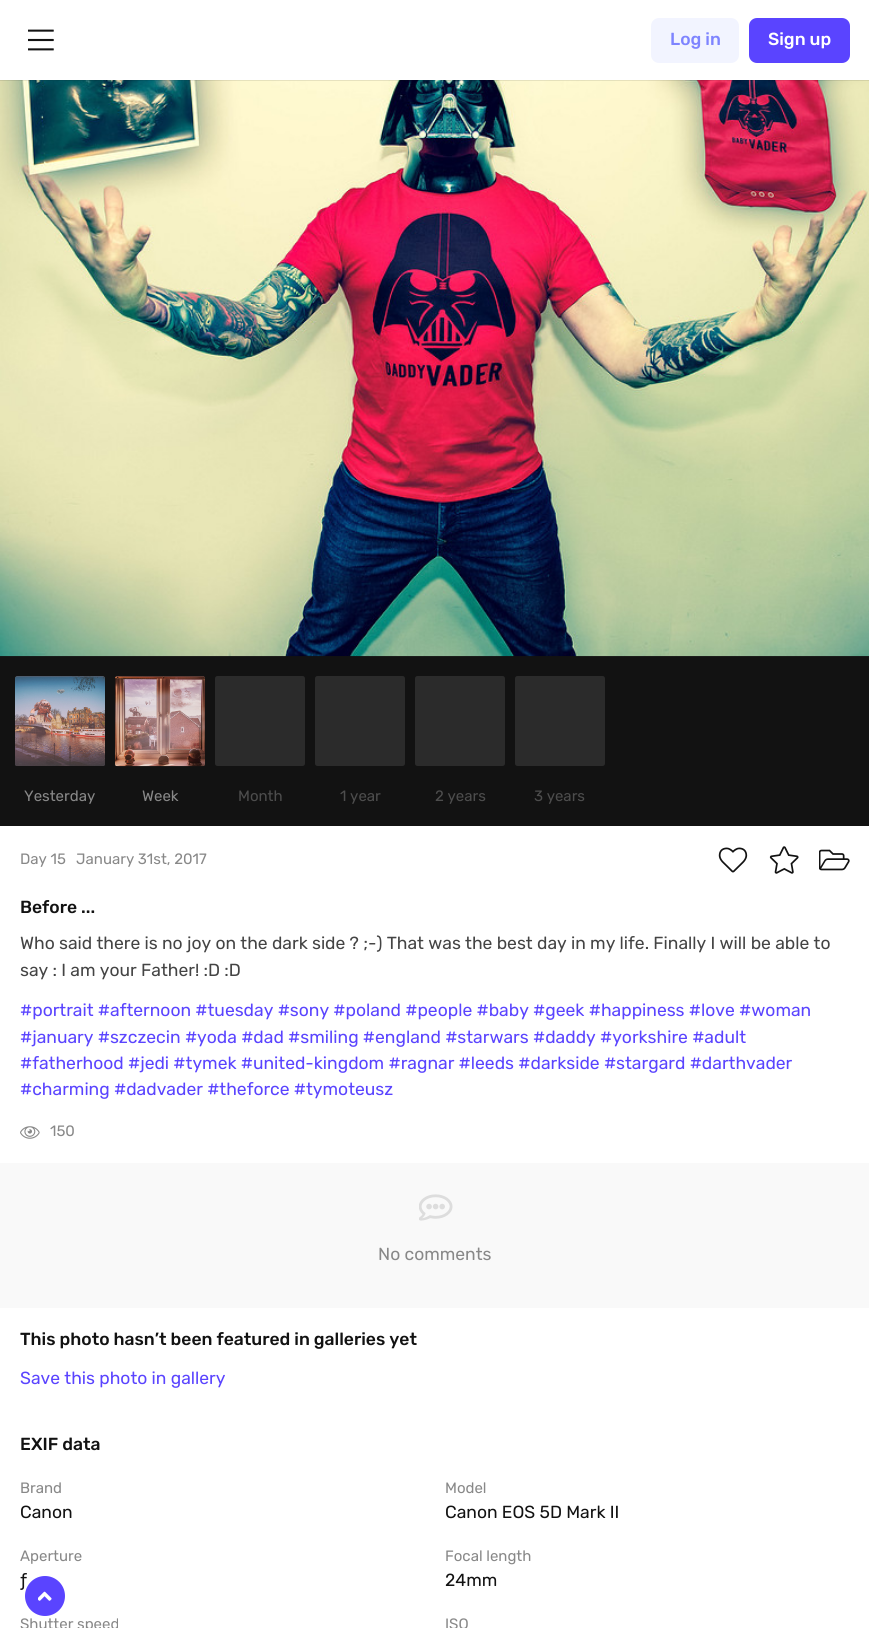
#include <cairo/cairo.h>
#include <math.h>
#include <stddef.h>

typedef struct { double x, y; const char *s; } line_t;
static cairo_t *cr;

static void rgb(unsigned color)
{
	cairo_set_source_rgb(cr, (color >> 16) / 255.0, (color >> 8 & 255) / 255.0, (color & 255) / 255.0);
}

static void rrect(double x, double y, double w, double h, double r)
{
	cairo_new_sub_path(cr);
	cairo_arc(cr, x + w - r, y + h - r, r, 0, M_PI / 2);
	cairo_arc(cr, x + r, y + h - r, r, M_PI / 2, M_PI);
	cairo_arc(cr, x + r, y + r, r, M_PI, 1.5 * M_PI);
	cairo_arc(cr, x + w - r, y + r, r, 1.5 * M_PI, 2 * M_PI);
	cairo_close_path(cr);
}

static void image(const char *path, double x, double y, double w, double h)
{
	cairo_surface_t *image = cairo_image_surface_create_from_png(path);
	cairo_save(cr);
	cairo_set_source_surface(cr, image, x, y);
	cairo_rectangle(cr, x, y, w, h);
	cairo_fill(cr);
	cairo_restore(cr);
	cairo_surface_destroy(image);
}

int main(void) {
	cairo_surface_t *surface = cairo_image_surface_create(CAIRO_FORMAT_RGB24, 869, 1628);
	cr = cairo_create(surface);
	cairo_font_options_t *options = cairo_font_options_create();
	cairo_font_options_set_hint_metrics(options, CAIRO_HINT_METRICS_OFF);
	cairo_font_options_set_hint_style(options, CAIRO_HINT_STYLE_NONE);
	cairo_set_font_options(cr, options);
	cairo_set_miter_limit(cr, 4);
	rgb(0xffffff);
	cairo_paint(cr);
	rgb(0x121212);
	cairo_rectangle(cr, 0, 656, 869, 170);
	cairo_fill(cr);
	image("img/2.png", 0, 80, 869, 577);
	cairo_set_source_rgba(cr, 0.071, 0.071, 0.071, 0.1);
	cairo_rectangle(cr, 0, 80, 869, 1);
	cairo_fill(cr);
	image("img/1.png", 28, 29, 26, 22);
	rgb(0xf2f4ff);
	rrect(651, 18, 88, 45, 8);
	cairo_fill(cr);
	rgb(0x5a44ff);
	rrect(749, 18, 101, 45, 8);
	cairo_fill(cr);
	rgb(0x656068);
	rrect(15, 676, 90, 90, 2.5);
	cairo_fill(cr);
	image("img/3.png", 15, 676, 90, 90);
	rgb(0x9a6b60);
	rrect(115, 676, 90, 90, 2.5);
	cairo_fill(cr);
	image("img/4.png", 115, 676, 90, 91);
	rgb(0x2b2b2b);
	rrect(215, 676, 90, 90, 2.5);
	cairo_fill(cr);
	rrect(315, 676, 90, 90, 2.5);
	cairo_fill(cr);
	rrect(415, 676, 90, 90, 2.5);
	cairo_fill(cr);
	rrect(515, 676, 90, 90, 2.5);
	cairo_fill(cr);
	image("img/5.png", 718, 847, 30, 26);
	image("img/6.png", 769, 846, 30, 28);
	image("img/7.png", 819, 849, 31, 22);
	image("img/8.png", 20, 1126, 20, 13);
	rgb(0xf9f9f9);
	cairo_rectangle(cr, 0, 1163, 869, 145);
	cairo_fill(cr);
	image("img/9.png", 419, 1194, 34, 27);
	cairo_select_font_face(cr, "Rubik Medium", CAIRO_FONT_SLANT_NORMAL, CAIRO_FONT_WEIGHT_NORMAL);
	cairo_set_font_size(cr, 17.5);
	rgb(0x7e84ff);
	cairo_move_to(cr, 670, 45);
	cairo_show_text(cr, "Log in");
	rgb(0xffffff);
	cairo_move_to(cr, 768, 45);
	cairo_show_text(cr, "Sign up");
	cairo_select_font_face(cr, "Rubik", CAIRO_FONT_SLANT_NORMAL, CAIRO_FONT_WEIGHT_NORMAL);
	cairo_set_font_size(cr, 15);
	rgb(0x888888);
	cairo_move_to(cr, 24, 801);
	cairo_show_text(cr, "Yesterday");
	cairo_move_to(cr, 142, 801);
	cairo_show_text(cr, "Week");
	rgb(0x4d4d4d);
	{
		static const line_t items[] = {
			{238, 801, "Month"},
			{340, 801, "1 year"},
			{435, 801, "2 years"},
			{534, 801, "3 years"},
		};
		for (size_t i = 0; i < sizeof items / sizeof *items; i++) {
			cairo_move_to(cr, items[i].x, items[i].y);
			cairo_show_text(cr, items[i].s);
		}
	}
	rgb(0x888888);
	cairo_move_to(cr, 20, 864);
	cairo_show_text(cr, "Day 15");
	cairo_move_to(cr, 76, 864);
	cairo_show_text(cr, "January 31st, 2017");
	cairo_select_font_face(cr, "Rubik Medium", CAIRO_FONT_SLANT_NORMAL, CAIRO_FONT_WEIGHT_NORMAL);
	cairo_set_font_size(cr, 17.5);
	rgb(0x121212);
	cairo_move_to(cr, 20, 913);
	cairo_show_text(cr, "Before ...");
	cairo_select_font_face(cr, "Rubik", CAIRO_FONT_SLANT_NORMAL, CAIRO_FONT_WEIGHT_NORMAL);
	rgb(0x444444);
	cairo_move_to(cr, 20, 949);
	cairo_show_text(cr, "Who said there is no joy on the dark side ? ;-) That was the best day in my life. Finally I will be able to");
	cairo_move_to(cr, 20, 976);
	cairo_show_text(cr, "say : I am your Father! :D :D");
	rgb(0x5a44ff);
	{
		static const line_t items[] = {
			{20, 1016, "#portrait #afternoon #tuesday #sony #poland #people #baby #geek #happiness #love #woman"},
			{20, 1043, "#january #szczecin #yoda #dad #smiling #england #starwars #daddy #yorkshire #adult"},
			{20, 1069, "#fatherhood #jedi #tymek #united-kingdom #ragnar #leeds #darkside #stargard #darthvader"},
			{20, 1095, "#charming #dadvader #theforce #tymoteusz"},
		};
		for (size_t i = 0; i < sizeof items / sizeof *items; i++) {
			cairo_move_to(cr, items[i].x, items[i].y);
			cairo_show_text(cr, items[i].s);
		}
	}
	cairo_set_font_size(cr, 15);
	rgb(0x888888);
	cairo_move_to(cr, 50, 1136);
	cairo_show_text(cr, "150");
	cairo_set_font_size(cr, 17.5);
	cairo_move_to(cr, 378, 1260);
	cairo_show_text(cr, "No comments");
	cairo_select_font_face(cr, "Rubik Medium", CAIRO_FONT_SLANT_NORMAL, CAIRO_FONT_WEIGHT_NORMAL);
	rgb(0x121212);
	cairo_move_to(cr, 20, 1345);
	cairo_show_text(cr, "This photo hasn’t been featured in galleries yet");
	cairo_select_font_face(cr, "Rubik", CAIRO_FONT_SLANT_NORMAL, CAIRO_FONT_WEIGHT_NORMAL);
	rgb(0x5a44ff);
	cairo_move_to(cr, 20, 1384);
	cairo_show_text(cr, "Save this photo in gallery");
	cairo_select_font_face(cr, "Rubik Medium", CAIRO_FONT_SLANT_NORMAL, CAIRO_FONT_WEIGHT_NORMAL);
	rgb(0x121212);
	cairo_move_to(cr, 20, 1450);
	cairo_show_text(cr, "EXIF data");
	cairo_select_font_face(cr, "Rubik", CAIRO_FONT_SLANT_NORMAL, CAIRO_FONT_WEIGHT_NORMAL);
	cairo_set_font_size(cr, 15);
	rgb(0x888888);
	cairo_move_to(cr, 20, 1493);
	cairo_show_text(cr, "Brand");
	cairo_set_font_size(cr, 17.5);
	rgb(0x121212);
	cairo_move_to(cr, 20, 1518);
	cairo_show_text(cr, "Canon");
	cairo_set_font_size(cr, 15);
	rgb(0x888888);
	cairo_move_to(cr, 445, 1493);
	cairo_show_text(cr, "Model");
	cairo_set_font_size(cr, 17.5);
	rgb(0x121212);
	cairo_move_to(cr, 445, 1518);
	cairo_show_text(cr, "Canon EOS 5D Mark II");
	cairo_set_font_size(cr, 15);
	rgb(0x888888);
	cairo_move_to(cr, 20, 1561);
	cairo_show_text(cr, "Aperture");
	cairo_set_font_size(cr, 17.5);
	rgb(0x121212);
	cairo_move_to(cr, 20, 1586);
	cairo_show_text(cr, "ƒ");
	cairo_set_font_size(cr, 15);
	rgb(0x888888);
	cairo_move_to(cr, 445, 1561);
	cairo_show_text(cr, "Focal length");
	cairo_set_font_size(cr, 17.5);
	rgb(0x121212);
	cairo_move_to(cr, 445, 1586);
	cairo_show_text(cr, "24mm");
	cairo_set_font_size(cr, 15);
	rgb(0x888888);
	cairo_move_to(cr, 20, 1629);
	cairo_show_text(cr, "Shutter speed");
	cairo_move_to(cr, 445, 1629);
	cairo_show_text(cr, "ISO");
	rgb(0x5a44ff);
	cairo_new_path(cr);
	cairo_arc(cr, 45, 1596, 20, 0, 2 * M_PI);
	cairo_fill(cr);
	image("img/10.png", 38, 1591, 14, 10);
	cairo_surface_write_to_png(surface, "page.png");
	cairo_font_options_destroy(options);
	cairo_destroy(cr);
	cairo_surface_destroy(surface);
	return 0;
}
